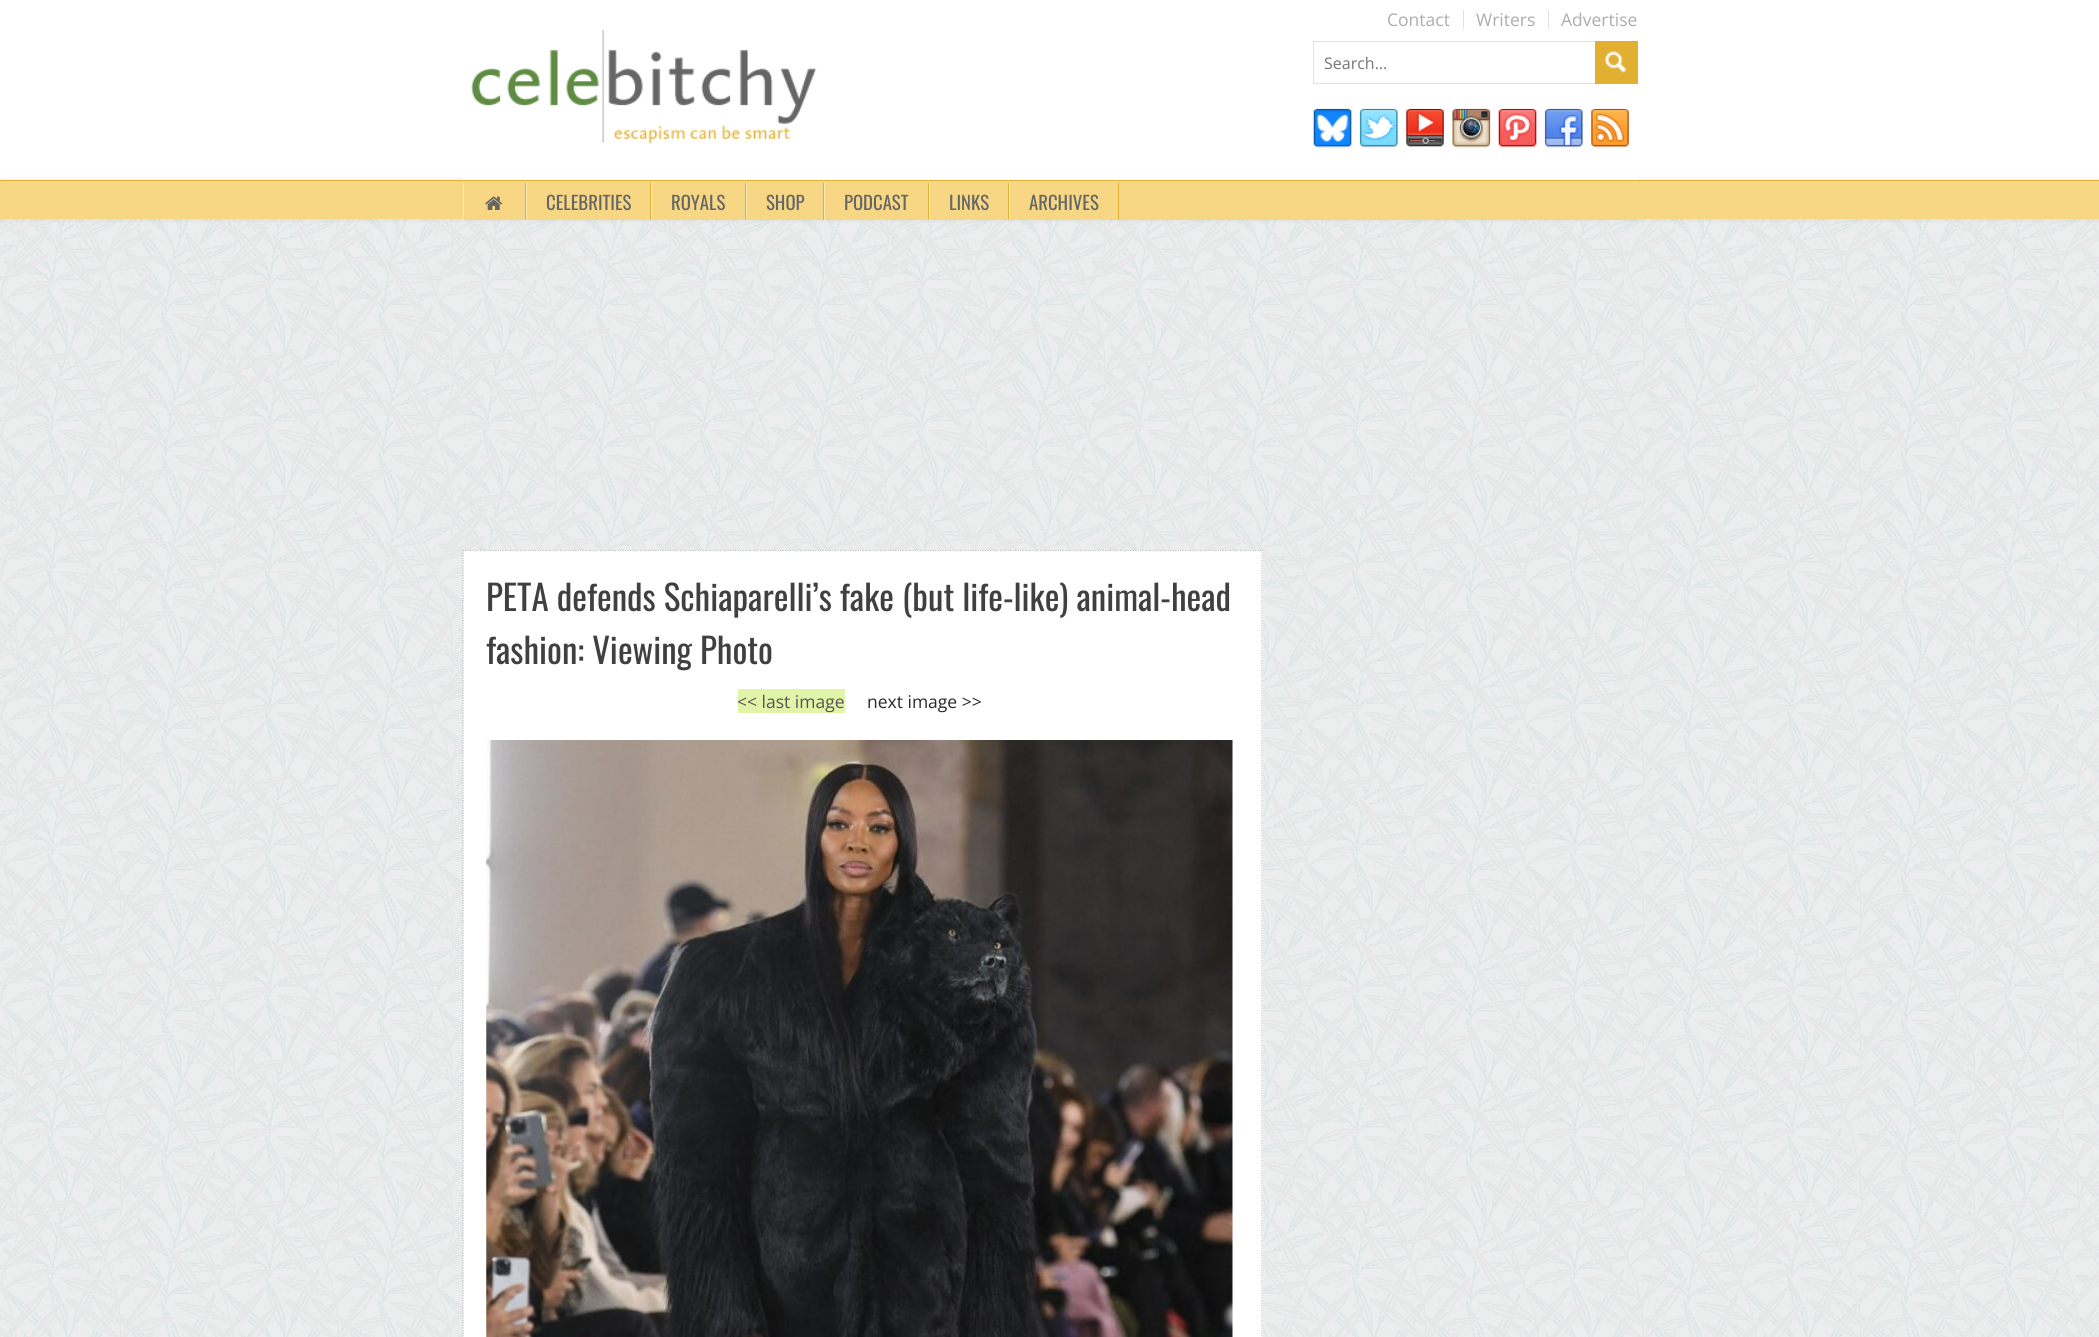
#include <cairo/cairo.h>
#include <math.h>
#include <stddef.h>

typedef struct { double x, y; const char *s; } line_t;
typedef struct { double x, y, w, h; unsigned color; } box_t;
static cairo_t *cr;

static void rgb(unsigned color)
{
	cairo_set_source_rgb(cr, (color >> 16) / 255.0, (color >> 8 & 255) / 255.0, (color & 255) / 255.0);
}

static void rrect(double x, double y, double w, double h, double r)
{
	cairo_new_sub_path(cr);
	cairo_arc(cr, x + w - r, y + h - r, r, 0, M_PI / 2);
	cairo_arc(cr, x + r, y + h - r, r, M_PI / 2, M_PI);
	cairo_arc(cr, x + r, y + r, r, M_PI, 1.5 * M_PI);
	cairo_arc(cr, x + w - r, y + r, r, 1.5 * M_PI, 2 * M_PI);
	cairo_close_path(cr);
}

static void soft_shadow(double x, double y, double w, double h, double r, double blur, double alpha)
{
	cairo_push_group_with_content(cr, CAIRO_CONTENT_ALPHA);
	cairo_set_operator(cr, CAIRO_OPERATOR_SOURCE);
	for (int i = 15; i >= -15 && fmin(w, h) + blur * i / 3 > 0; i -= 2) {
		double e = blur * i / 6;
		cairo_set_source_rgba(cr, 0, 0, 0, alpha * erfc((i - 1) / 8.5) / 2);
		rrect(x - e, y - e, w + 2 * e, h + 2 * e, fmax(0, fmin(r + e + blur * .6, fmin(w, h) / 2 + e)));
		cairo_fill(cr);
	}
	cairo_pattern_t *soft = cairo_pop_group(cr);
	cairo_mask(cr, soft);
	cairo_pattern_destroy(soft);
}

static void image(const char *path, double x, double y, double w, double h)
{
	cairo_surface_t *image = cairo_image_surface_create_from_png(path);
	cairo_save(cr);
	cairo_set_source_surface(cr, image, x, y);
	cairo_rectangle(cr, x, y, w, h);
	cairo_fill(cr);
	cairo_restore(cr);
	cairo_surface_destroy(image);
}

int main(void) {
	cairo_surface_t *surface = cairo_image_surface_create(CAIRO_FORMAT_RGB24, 2099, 1337);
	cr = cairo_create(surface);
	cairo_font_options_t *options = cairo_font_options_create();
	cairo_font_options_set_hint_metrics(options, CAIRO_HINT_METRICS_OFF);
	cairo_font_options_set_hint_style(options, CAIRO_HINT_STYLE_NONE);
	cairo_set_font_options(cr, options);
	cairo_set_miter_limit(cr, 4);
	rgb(0xffffff);
	cairo_paint(cr);
	image("img/1.png", 0, 219, 2099, 1118);
	rgb(0x000000);
	soft_shadow(0, 180, 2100, 39, 0, 3, 0.1);
	{
		static const box_t items[] = {
			{463, 176, 1175, 4, 0xffffff},
			{1463, 10, 1, 19, 0xe1e1e1},
			{1548, 10, 1, 19, 0xe1e1e1},
		};
		for (size_t i = 0; i < sizeof items / sizeof *items; i++) {
			rgb(items[i].color);
			cairo_rectangle(cr, items[i].x, items[i].y, items[i].w, items[i].h);
			cairo_fill(cr);
		}
	}
	image("img/2.png", 471, 30, 346, 114);
	cairo_rectangle(cr, 1313.5, 41.5, 324, 42);
	cairo_set_line_width(cr, 1);
	cairo_stroke(cr);
	rgb(0xe1b033);
	cairo_rectangle(cr, 1595, 41, 43, 43);
	cairo_fill(cr);
	image("img/3.png", 1604, 51, 23, 22);
	image("img/4.png", 1313, 108, 39, 40);
	image("img/5.png", 1359, 108, 39, 40);
	image("img/6.png", 1406, 108, 38, 39);
	image("img/7.png", 1452, 108, 39, 40);
	image("img/8.png", 1498, 108, 39, 40);
	image("img/9.png", 1544, 108, 39, 40);
	image("img/10.png", 1591, 108, 38, 40);
	{
		static const box_t items[] = {
			{0, 181, 2099, 38, 0xf8d784},
			{0, 180, 2099, 1, 0xe1b033},
			{463, 219, 1175, 1, 0xf8d784},
			{525, 183, 1, 37, 0xe1b033},
			{463, 183, 1, 37, 0xfbeabe},
		};
		for (size_t i = 0; i < sizeof items / sizeof *items; i++) {
			rgb(items[i].color);
			cairo_rectangle(cr, items[i].x, items[i].y, items[i].w, items[i].h);
			cairo_fill(cr);
		}
	}
	image("img/11.png", 485, 196, 18, 14);
	{
		static const box_t items[] = {
			{650, 183, 1, 37, 0xe1b033},
			{526, 183, 1, 37, 0xfbeabe},
			{745, 183, 1, 37, 0xe1b033},
			{651, 183, 1, 37, 0xfbeabe},
			{823, 183, 1, 37, 0xe1b033},
			{746, 183, 1, 37, 0xfbeabe},
			{928, 183, 1, 37, 0xe1b033},
			{824, 183, 1, 37, 0xfbeabe},
			{1008, 183, 1, 37, 0xe1b033},
			{929, 183, 1, 37, 0xfbeabe},
			{1118, 183, 1, 37, 0xe1b033},
			{1009, 183, 1, 37, 0xfbeabe},
			{463, 550, 800, 787, 0xffffff},
		};
		for (size_t i = 0; i < sizeof items / sizeof *items; i++) {
			rgb(items[i].color);
			cairo_rectangle(cr, items[i].x, items[i].y, items[i].w, items[i].h);
			cairo_fill(cr);
		}
	}
	cairo_new_path(cr);
	cairo_move_to(cr, 462.5, 550.5);
	cairo_line_to(cr, 1262.5, 550.5);
	rgb(0xbebebe);
	cairo_set_line_width(cr, 1.2);
	cairo_set_dash(cr, (double[]){1.25, 1.25}, 2, 0);
	cairo_stroke(cr);
	cairo_new_path(cr);
	cairo_move_to(cr, 1262, 550);
	cairo_line_to(cr, 1262, 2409);
	cairo_stroke(cr);
	cairo_new_path(cr);
	cairo_move_to(cr, 463, 550);
	cairo_line_to(cr, 463, 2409);
	cairo_stroke(cr);
	rgb(0xe1f4a8);
	cairo_rectangle(cr, 738, 689, 107, 24);
	cairo_fill(cr);
	image("img/12.png", 486, 740, 747, 597);
	cairo_select_font_face(cr, "Open Sans", CAIRO_FONT_SLANT_NORMAL, CAIRO_FONT_WEIGHT_NORMAL);
	cairo_set_font_size(cr, 17.5);
	rgb(0xacacac);
	{
		static const line_t items[] = {
			{1387, 26, "Contact"},
			{1476, 26, "Writers"},
			{1561, 26, "Advertise"},
		};
		for (size_t i = 0; i < sizeof items / sizeof *items; i++) {
			cairo_move_to(cr, items[i].x, items[i].y);
			cairo_show_text(cr, items[i].s);
		}
	}
	cairo_set_font_size(cr, 16);
	rgb(0x757575);
	cairo_move_to(cr, 1324, 69);
	cairo_show_text(cr, "Search...");
	cairo_select_font_face(cr, "Oswald", CAIRO_FONT_SLANT_NORMAL, CAIRO_FONT_WEIGHT_NORMAL);
	cairo_set_font_size(cr, 18.75);
	rgb(0x666666);
	{
		static const line_t items[] = {
			{546, 210, "CELEBRITIES"},
			{671, 210, "ROYALS"},
			{766, 210, "SHOP"},
			{844, 210, "PODCAST"},
			{949, 210, "LINKS"},
			{1029, 210, "ARCHIVES"},
		};
		for (size_t i = 0; i < sizeof items / sizeof *items; i++) {
			cairo_move_to(cr, items[i].x, items[i].y);
			cairo_show_text(cr, items[i].s);
		}
	}
	cairo_set_font_size(cr, 35);
	rgb(0x404040);
	cairo_move_to(cr, 486, 611);
	cairo_show_text(cr, "PETA defends Schiaparelli’s fake (but life-like) animal-head");
	cairo_move_to(cr, 486, 664);
	cairo_show_text(cr, "fashion: Viewing Photo");
	cairo_select_font_face(cr, "Open Sans", CAIRO_FONT_SLANT_NORMAL, CAIRO_FONT_WEIGHT_NORMAL);
	cairo_set_font_size(cr, 17.5);
	rgb(0x555555);
	cairo_move_to(cr, 737, 708);
	cairo_show_text(cr, "<< last image");
	rgb(0x292929);
	cairo_move_to(cr, 867, 708);
	cairo_show_text(cr, "next image >>");
	cairo_surface_write_to_png(surface, "page.png");
	cairo_font_options_destroy(options);
	cairo_destroy(cr);
	cairo_surface_destroy(surface);
	return 0;
}
